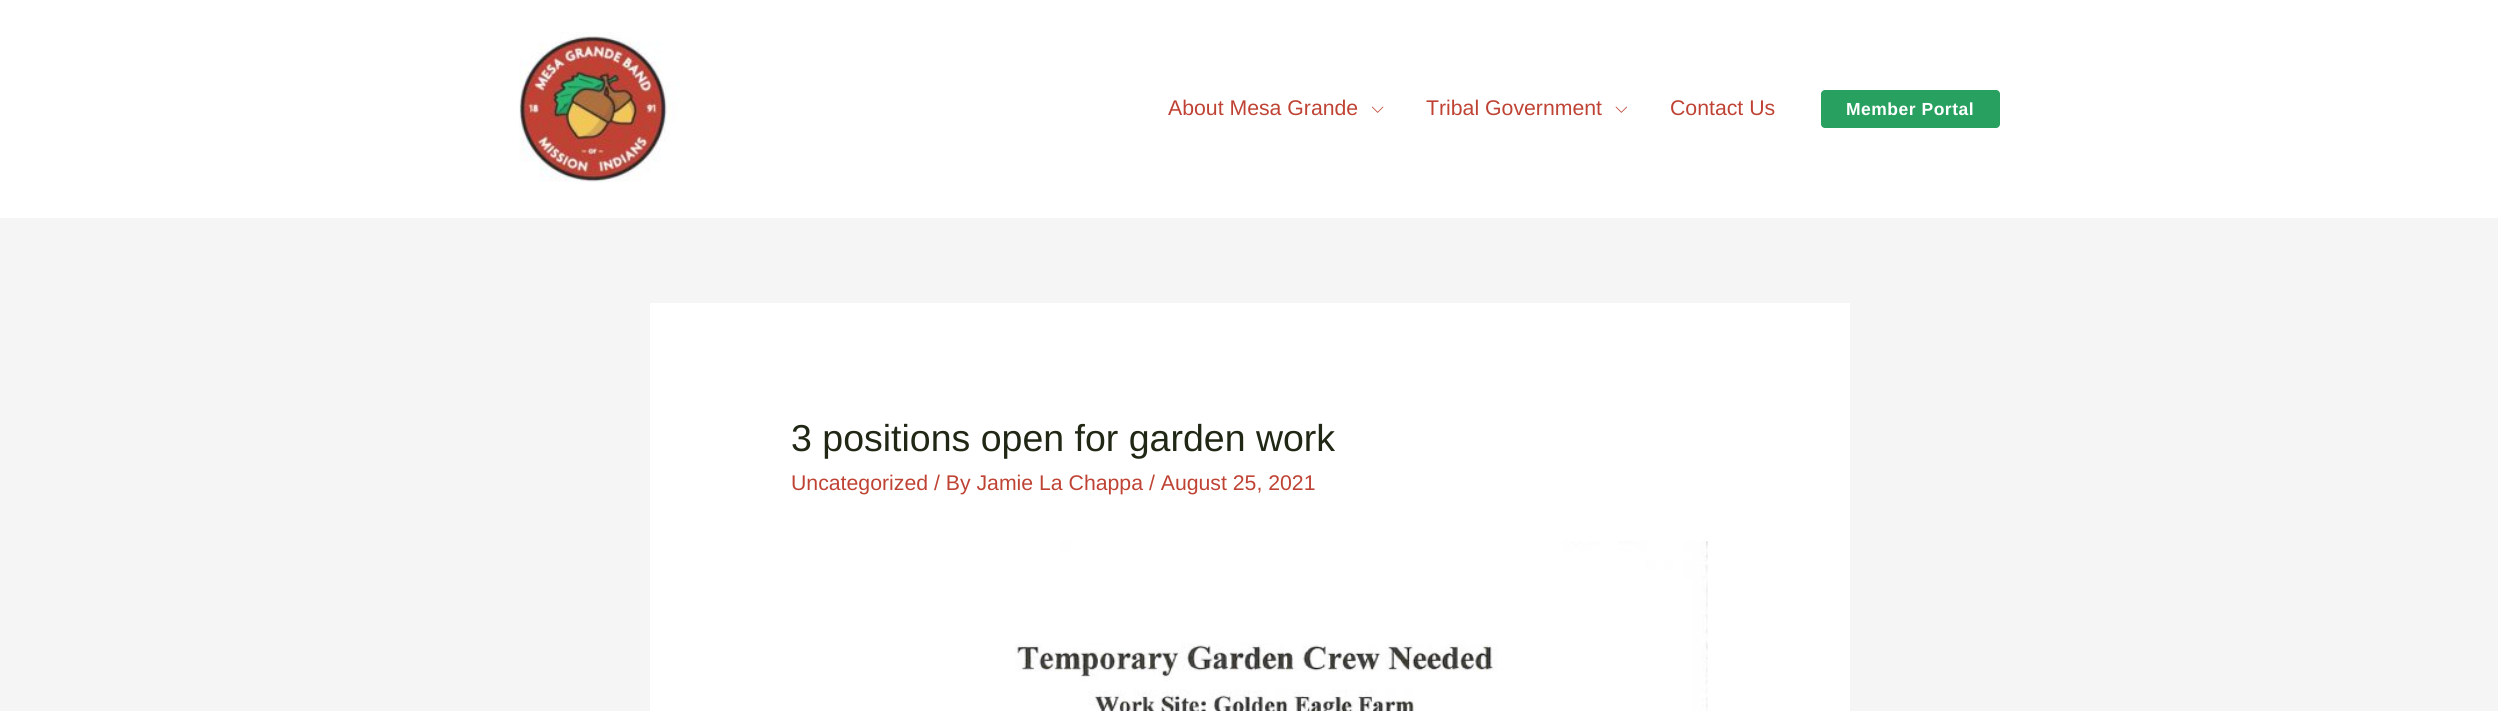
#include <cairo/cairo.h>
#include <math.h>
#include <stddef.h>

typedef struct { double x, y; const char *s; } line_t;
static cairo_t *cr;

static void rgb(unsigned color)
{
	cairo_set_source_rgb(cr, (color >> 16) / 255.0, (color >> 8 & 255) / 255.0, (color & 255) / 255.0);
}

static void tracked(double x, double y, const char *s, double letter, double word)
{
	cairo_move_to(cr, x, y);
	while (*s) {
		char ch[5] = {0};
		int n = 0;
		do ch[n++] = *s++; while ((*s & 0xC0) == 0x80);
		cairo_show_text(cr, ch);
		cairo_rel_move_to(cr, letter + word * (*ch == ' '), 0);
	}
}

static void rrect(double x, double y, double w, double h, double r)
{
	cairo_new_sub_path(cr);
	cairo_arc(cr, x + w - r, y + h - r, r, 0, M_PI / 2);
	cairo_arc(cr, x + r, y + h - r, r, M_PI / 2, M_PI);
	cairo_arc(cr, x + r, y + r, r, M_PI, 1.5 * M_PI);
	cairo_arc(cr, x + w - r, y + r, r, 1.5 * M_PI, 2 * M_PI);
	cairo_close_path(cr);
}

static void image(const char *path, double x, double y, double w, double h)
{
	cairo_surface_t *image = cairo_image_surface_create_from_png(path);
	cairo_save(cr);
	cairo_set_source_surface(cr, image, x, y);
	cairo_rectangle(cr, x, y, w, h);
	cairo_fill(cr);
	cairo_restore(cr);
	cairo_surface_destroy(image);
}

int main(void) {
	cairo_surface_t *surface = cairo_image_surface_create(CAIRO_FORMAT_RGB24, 2498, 711);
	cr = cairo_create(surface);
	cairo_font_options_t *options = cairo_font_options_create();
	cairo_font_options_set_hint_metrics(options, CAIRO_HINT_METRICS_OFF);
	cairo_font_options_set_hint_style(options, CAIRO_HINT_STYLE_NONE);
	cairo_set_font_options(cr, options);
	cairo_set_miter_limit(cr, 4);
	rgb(0xf5f5f5);
	cairo_paint(cr);
	rgb(0xffffff);
	cairo_rectangle(cr, 0, 0, 2498, 218);
	cairo_fill(cr);
	image("img/1.png", 519, 32, 161, 150);
	image("img/2.png", 1372, 106, 12, 7);
	image("img/3.png", 1615, 106, 12, 7);
	rgb(0x28a060);
	rrect(1821, 90, 179, 38, 4);
	cairo_fill(cr);
	rgb(0xffffff);
	cairo_rectangle(cr, 650, 303, 1200, 408);
	cairo_fill(cr);
	image("img/4.png", 1015, 541, 693, 170);
	cairo_select_font_face(cr, "Liberation Sans", CAIRO_FONT_SLANT_NORMAL, CAIRO_FONT_WEIGHT_NORMAL);
	cairo_set_font_size(cr, 21.25);
	rgb(0xbf4334);
	{
		static const line_t items[] = {
			{1168, 115, "About Mesa Grande"},
			{1426, 115, "Tribal Government"},
			{1670, 115, "Contact Us"},
		};
		for (size_t i = 0; i < sizeof items / sizeof *items; i++) {
			cairo_move_to(cr, items[i].x, items[i].y);
			cairo_show_text(cr, items[i].s);
		}
	}
	cairo_select_font_face(cr, "Liberation Sans", CAIRO_FONT_SLANT_NORMAL, CAIRO_FONT_WEIGHT_BOLD);
	cairo_set_font_size(cr, 17.5);
	rgb(0xffffff);
	tracked(1846, 115, "Member Portal", 0.5, 0);
	cairo_select_font_face(cr, "Liberation Sans", CAIRO_FONT_SLANT_NORMAL, CAIRO_FONT_WEIGHT_NORMAL);
	cairo_set_font_size(cr, 37.5);
	rgb(0x202714);
	cairo_move_to(cr, 791, 451);
	cairo_show_text(cr, "3 positions open for garden work");
	cairo_set_font_size(cr, 21.25);
	rgb(0xbf4334);
	cairo_move_to(cr, 791, 490);
	cairo_show_text(cr, "Uncategorized / By Jamie La Chappa / August 25, 2021");
	cairo_surface_write_to_png(surface, "page.png");
	cairo_font_options_destroy(options);
	cairo_destroy(cr);
	cairo_surface_destroy(surface);
	return 0;
}
